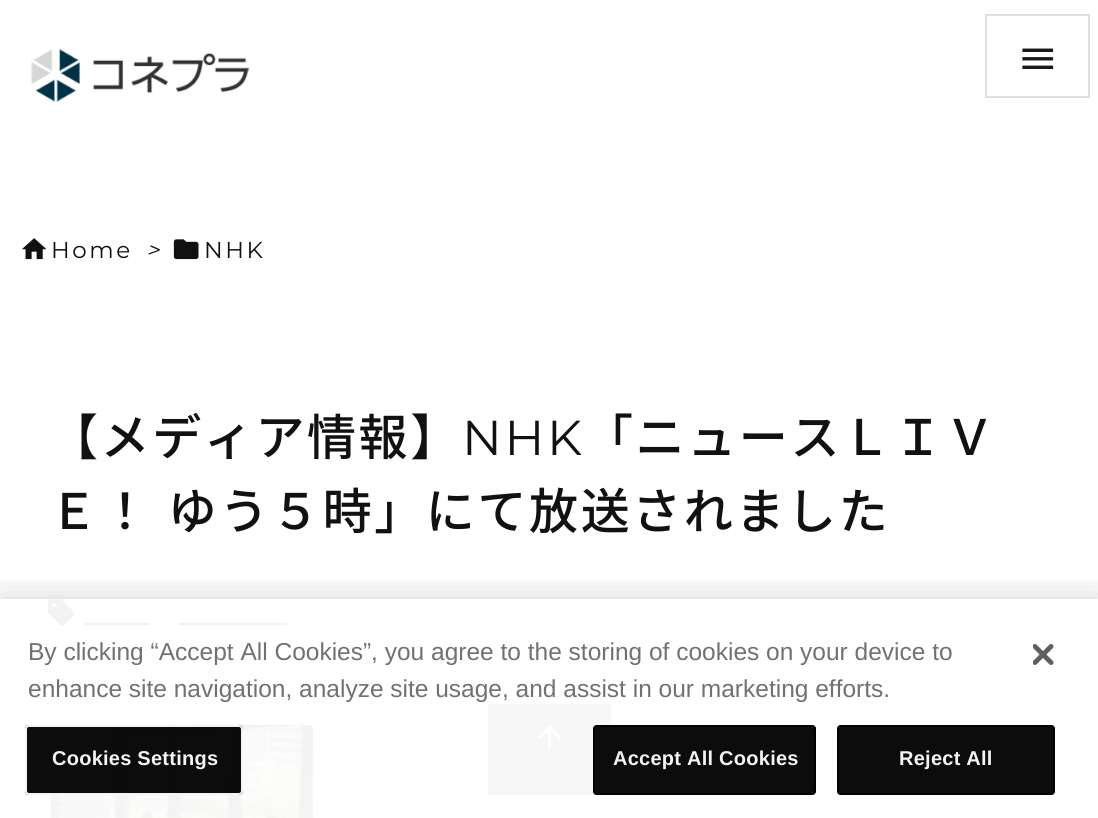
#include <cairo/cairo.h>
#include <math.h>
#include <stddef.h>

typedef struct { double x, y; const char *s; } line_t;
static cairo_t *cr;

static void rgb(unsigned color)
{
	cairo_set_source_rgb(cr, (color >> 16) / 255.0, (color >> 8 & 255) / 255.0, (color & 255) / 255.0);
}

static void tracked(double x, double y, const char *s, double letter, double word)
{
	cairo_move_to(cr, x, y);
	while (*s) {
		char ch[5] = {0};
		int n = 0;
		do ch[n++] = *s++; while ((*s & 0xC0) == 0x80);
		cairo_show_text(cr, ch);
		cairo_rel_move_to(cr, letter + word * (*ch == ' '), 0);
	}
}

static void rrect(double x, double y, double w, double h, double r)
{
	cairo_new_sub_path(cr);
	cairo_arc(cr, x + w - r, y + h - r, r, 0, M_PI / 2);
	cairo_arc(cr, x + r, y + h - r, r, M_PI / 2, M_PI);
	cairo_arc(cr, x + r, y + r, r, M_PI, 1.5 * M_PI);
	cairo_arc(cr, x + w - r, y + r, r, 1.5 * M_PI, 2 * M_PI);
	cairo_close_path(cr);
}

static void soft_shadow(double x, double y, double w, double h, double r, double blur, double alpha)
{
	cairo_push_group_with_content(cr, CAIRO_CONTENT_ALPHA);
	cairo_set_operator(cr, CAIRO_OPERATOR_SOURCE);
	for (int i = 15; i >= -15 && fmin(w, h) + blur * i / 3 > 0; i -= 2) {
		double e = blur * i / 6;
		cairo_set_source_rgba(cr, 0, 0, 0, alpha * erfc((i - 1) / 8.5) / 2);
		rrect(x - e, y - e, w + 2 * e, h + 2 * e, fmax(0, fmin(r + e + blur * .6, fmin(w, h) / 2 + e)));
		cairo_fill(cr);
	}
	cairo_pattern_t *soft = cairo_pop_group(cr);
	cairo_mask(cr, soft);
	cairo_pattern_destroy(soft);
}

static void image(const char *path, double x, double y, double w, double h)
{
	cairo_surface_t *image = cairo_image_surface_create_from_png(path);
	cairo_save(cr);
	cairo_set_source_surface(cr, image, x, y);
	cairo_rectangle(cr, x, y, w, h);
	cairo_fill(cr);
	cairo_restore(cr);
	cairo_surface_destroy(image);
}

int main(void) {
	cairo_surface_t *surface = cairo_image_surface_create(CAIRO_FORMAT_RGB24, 1098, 818);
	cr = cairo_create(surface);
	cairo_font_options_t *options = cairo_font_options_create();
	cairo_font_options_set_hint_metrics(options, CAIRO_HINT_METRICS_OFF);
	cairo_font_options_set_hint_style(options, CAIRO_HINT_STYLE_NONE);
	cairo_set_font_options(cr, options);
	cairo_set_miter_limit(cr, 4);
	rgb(0xffffff);
	cairo_paint(cr);
	image("img/1.png", 31, 49, 219, 53);
	cairo_rectangle(cr, 986, 15, 103, 82);
	rgb(0xe0e0e0);
	cairo_stroke(cr);
	image("img/2.png", 1022, 48, 32, 21);
	image("img/3.png", 22, 238, 25, 22);
	image("img/4.png", 173, 239, 26, 21);
	image("img/5.png", 48, 599, 27, 27);
	rgb(0xf3f3f3);
	cairo_rectangle(cr, 84, 623, 65, 2);
	cairo_fill(cr);
	cairo_rectangle(cr, 179, 623, 108, 2);
	cairo_fill(cr);
	image("img/6.png", 50, 724, 264, 94);
	cairo_set_source_rgba(cr, 0.949, 0.949, 0.949, 0.6);
	cairo_rectangle(cr, 488, 704, 123, 91);
	cairo_fill(cr);
	image("img/8.png", 537, 725, 25, 25);
	cairo_save(cr);
	cairo_rectangle(cr, 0, 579, 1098, 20);
	cairo_clip(cr);
	rgb(0x0d0d0d);
	soft_shadow(0, 599, 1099, 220, 0, 16, 0.2);
	cairo_restore(cr);
	cairo_set_source_rgba(cr, 0, 0, 0, 0.95);
	rrect(25, 725, 218, 70, 4);
	cairo_fill(cr);
	rrect(26, 726, 216, 68, 3);
	cairo_set_source_rgba(cr, 1, 1, 1, 0.95);
	cairo_stroke(cr);
	cairo_set_source_rgba(cr, 0, 0, 0, 0.95);
	rrect(593, 725, 223, 70, 4);
	cairo_fill(cr);
	rrect(594, 726, 221, 68, 3);
	cairo_stroke(cr);
	rrect(837, 725, 218, 70, 4);
	cairo_fill(cr);
	rrect(838, 726, 216, 68, 3);
	cairo_stroke(cr);
	image("img/7.png", 1033, 644, 21, 21);
	cairo_select_font_face(cr, "Montserrat", CAIRO_FONT_SLANT_NORMAL, CAIRO_FONT_WEIGHT_NORMAL);
	cairo_set_font_size(cr, 23);
	rgb(0x111111);
	tracked(51, 258, "Home", 2.6, 0);
	cairo_select_font_face(cr, "Montserrat", CAIRO_FONT_SLANT_ITALIC, CAIRO_FONT_WEIGHT_NORMAL);
	tracked(146, 258, ">", 2.6, 0);
	cairo_select_font_face(cr, "Montserrat", CAIRO_FONT_SLANT_NORMAL, CAIRO_FONT_WEIGHT_NORMAL);
	tracked(204, 258, "NHK", 2.6, 0);
	cairo_select_font_face(cr, "Noto Sans JP Medium", CAIRO_FONT_SLANT_NORMAL, CAIRO_FONT_WEIGHT_NORMAL);
	cairo_set_font_size(cr, 49);
	tracked(49, 455, "【メディア情報】", 2.6, 0);
	cairo_select_font_face(cr, "Montserrat", CAIRO_FONT_SLANT_NORMAL, CAIRO_FONT_WEIGHT_NORMAL);
	tracked(462, 455, "NHK", 2.6, 0);
	cairo_select_font_face(cr, "Noto Sans JP Medium", CAIRO_FONT_SLANT_NORMAL, CAIRO_FONT_WEIGHT_NORMAL);
	tracked(584, 455, "「ニュースＬＩＶ", 2.6, 0);
	tracked(49, 529, "Ｅ！ ゆう５時」にて放送されました", 2.6, 2);
	cairo_select_font_face(cr, "Liberation Sans", CAIRO_FONT_SLANT_NORMAL, CAIRO_FONT_WEIGHT_NORMAL);
	cairo_set_font_size(cr, 24.5);
	rgb(0x717171);
	cairo_move_to(cr, 28, 660);
	cairo_show_text(cr, "By clicking “Accept All Cookies”, you agree to the storing of cookies on your device to");
	cairo_move_to(cr, 28, 697);
	cairo_show_text(cr, "enhance site navigation, analyze site usage, and assist in our marketing efforts.");
	cairo_select_font_face(cr, "Liberation Sans", CAIRO_FONT_SLANT_NORMAL, CAIRO_FONT_WEIGHT_BOLD);
	cairo_set_font_size(cr, 20);
	rgb(0xf3f3f3);
	{
		static const line_t items[] = {
			{52, 765, "Cookies Settings"},
			{613, 765, "Accept All Cookies"},
			{899, 765, "Reject All"},
		};
		for (size_t i = 0; i < sizeof items / sizeof *items; i++) {
			tracked(items[i].x, items[i].y, items[i].s, 0.25, 0);
		}
	}
	cairo_surface_write_to_png(surface, "page.png");
	cairo_font_options_destroy(options);
	cairo_destroy(cr);
	cairo_surface_destroy(surface);
	return 0;
}
